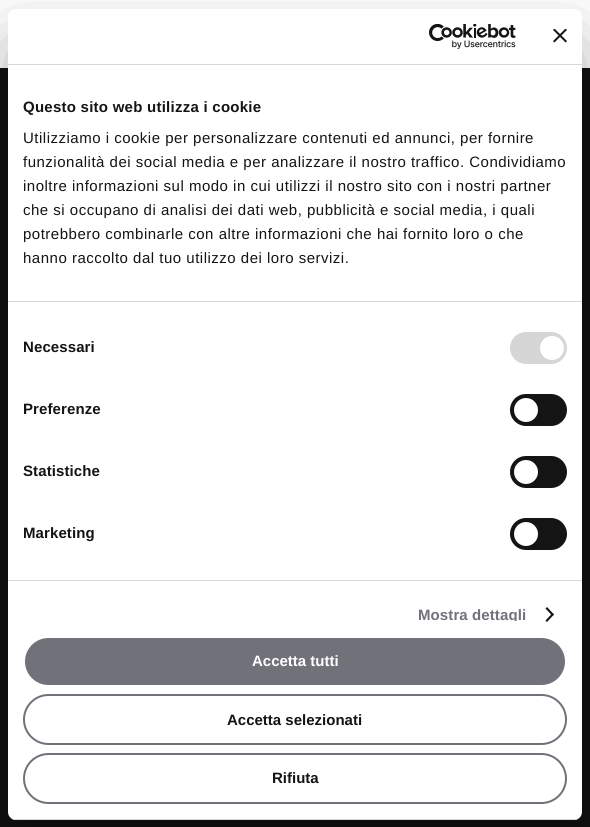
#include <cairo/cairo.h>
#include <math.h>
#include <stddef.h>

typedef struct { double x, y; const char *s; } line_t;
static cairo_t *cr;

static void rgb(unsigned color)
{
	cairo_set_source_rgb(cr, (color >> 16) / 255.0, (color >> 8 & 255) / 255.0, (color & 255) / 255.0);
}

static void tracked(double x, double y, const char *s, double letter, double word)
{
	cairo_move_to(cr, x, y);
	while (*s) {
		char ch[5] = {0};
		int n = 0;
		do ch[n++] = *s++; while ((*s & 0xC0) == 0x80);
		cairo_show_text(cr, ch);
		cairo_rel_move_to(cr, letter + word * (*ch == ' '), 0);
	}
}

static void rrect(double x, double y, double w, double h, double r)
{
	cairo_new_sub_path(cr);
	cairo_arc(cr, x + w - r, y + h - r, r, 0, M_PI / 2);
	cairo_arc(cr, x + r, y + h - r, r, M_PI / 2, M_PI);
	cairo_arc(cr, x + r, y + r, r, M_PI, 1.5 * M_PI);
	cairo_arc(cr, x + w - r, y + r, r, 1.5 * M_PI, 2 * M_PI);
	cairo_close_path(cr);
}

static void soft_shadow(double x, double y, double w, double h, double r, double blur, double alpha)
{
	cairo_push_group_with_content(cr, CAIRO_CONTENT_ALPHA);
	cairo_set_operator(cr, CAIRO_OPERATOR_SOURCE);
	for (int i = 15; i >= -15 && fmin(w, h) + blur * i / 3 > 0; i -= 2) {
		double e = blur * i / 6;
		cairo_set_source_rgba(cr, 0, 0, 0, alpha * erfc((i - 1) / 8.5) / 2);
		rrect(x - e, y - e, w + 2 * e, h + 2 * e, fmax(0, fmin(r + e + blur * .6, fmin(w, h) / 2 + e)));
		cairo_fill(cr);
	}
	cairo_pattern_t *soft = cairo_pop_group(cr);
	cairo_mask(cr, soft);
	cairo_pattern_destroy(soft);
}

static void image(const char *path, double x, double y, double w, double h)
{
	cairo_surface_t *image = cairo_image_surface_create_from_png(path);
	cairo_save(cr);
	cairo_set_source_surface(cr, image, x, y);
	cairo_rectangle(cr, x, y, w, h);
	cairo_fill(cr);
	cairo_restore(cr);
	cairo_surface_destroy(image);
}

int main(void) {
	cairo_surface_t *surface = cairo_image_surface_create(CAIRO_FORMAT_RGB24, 590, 827);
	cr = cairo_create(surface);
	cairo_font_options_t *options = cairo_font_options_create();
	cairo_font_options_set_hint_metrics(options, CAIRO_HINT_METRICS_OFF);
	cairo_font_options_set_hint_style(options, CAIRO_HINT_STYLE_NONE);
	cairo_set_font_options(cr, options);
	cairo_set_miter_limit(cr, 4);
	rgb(0x111111);
	cairo_paint(cr);
	rgb(0xffffff);
	cairo_rectangle(cr, 0, 0, 590, 68);
	cairo_fill(cr);
	rgb(0x000000);
	soft_shadow(8, 41, 574, 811, 8, 34, 0.3);
	rgb(0xffffff);
	rrect(8, 9, 574, 811, 8);
	cairo_fill(cr);
	rgb(0xd6d6d6);
	cairo_rectangle(cr, 8, 64, 574, 1);
	cairo_fill(cr);
	image("img/1.png", 429, 24, 87, 25);
	image("img/2.png", 553, 29, 14, 14);
	cairo_rectangle(cr, 8, 301, 574, 1);
	cairo_fill(cr);
	cairo_rectangle(cr, 8, 580, 574, 1);
	cairo_fill(cr);
	rrect(510, 332, 57, 32, 16);
	cairo_fill(cr);
	rgb(0xffffff);
	cairo_arc(cr, 552, 348, 12, 0, 2 * M_PI);
	cairo_fill(cr);
	rgb(0x141414);
	rrect(510, 394, 57, 32, 16);
	cairo_fill(cr);
	rgb(0xffffff);
	cairo_arc(cr, 526, 410, 12, 0, 2 * M_PI);
	cairo_fill(cr);
	rgb(0x141414);
	rrect(510, 456, 57, 32, 16);
	cairo_fill(cr);
	rgb(0xffffff);
	cairo_arc(cr, 526, 472, 12, 0, 2 * M_PI);
	cairo_fill(cr);
	rgb(0x141414);
	rrect(510, 518, 57, 32, 16);
	cairo_fill(cr);
	rgb(0xffffff);
	cairo_arc(cr, 526, 534, 12, 0, 2 * M_PI);
	cairo_fill(cr);
	rgb(0x141414);
	cairo_new_path(cr);
	cairo_move_to(cr, 547, 607);
	cairo_line_to(cr, 554, 614.5);
	cairo_line_to(cr, 552.5, 616);
	cairo_line_to(cr, 545.5, 608.5);
	cairo_close_path(cr);
	cairo_fill(cr);
	cairo_new_path(cr);
	cairo_move_to(cr, 552.5, 613);
	cairo_line_to(cr, 554, 614.5);
	cairo_line_to(cr, 547, 622);
	cairo_line_to(cr, 545.5, 620.5);
	cairo_close_path(cr);
	cairo_fill(cr);
	cairo_save(cr);
	rrect(8, 9, 574, 811, 8);
	cairo_clip(cr);
	rgb(0xd6d6d6);
	cairo_rectangle(cr, 8, 819, 574, 1);
	cairo_fill(cr);
	cairo_restore(cr);
	rgb(0x71717a);
	rrect(24, 637, 542, 49, 24.5);
	cairo_fill_preserve(cr);
	rgb(0xffffff);
	cairo_stroke(cr);
	rrect(24, 695, 542, 49, 24.5);
	rgb(0x71717a);
	cairo_stroke(cr);
	rrect(24, 754, 542, 49, 24.5);
	cairo_stroke(cr);
	cairo_select_font_face(cr, "Liberation Sans", CAIRO_FONT_SLANT_NORMAL, CAIRO_FONT_WEIGHT_BOLD);
	cairo_set_font_size(cr, 15);
	rgb(0x141414);
	tracked(23, 112, "Questo sito web utilizza i cookie", 0.25, 0);
	cairo_select_font_face(cr, "Liberation Sans", CAIRO_FONT_SLANT_NORMAL, CAIRO_FONT_WEIGHT_NORMAL);
	{
		static const line_t items[] = {
			{23, 143, "Utilizziamo i cookie per personalizzare contenuti ed annunci, per fornire"},
			{23, 167, "funzionalità dei social media e per analizzare il nostro traffico. Condividiamo"},
			{23, 191, "inoltre informazioni sul modo in cui utilizzi il nostro sito con i nostri partner"},
			{23, 215, "che si occupano di analisi dei dati web, pubblicità e social media, i quali"},
			{23, 239, "potrebbero combinarle con altre informazioni che hai fornito loro o che"},
			{23, 263, "hanno raccolto dal tuo utilizzo dei loro servizi."},
		};
		for (size_t i = 0; i < sizeof items / sizeof *items; i++) {
			tracked(items[i].x, items[i].y, items[i].s, 0.5, 0);
		}
	}
	cairo_select_font_face(cr, "Liberation Sans", CAIRO_FONT_SLANT_NORMAL, CAIRO_FONT_WEIGHT_BOLD);
	{
		static const line_t items[] = {
			{23, 352, "Necessari"},
			{23, 414, "Preferenze"},
			{23, 476, "Statistiche"},
			{23, 538, "Marketing"},
		};
		for (size_t i = 0; i < sizeof items / sizeof *items; i++) {
			tracked(items[i].x, items[i].y, items[i].s, 0.1, 0);
		}
	}
	cairo_save(cr);
	cairo_rectangle(cr, 8, 65, 574, 556);
	cairo_clip(cr);
	rgb(0x71717a);
	tracked(418, 620, "Mostra dettagli", 0.1, 0);
	cairo_restore(cr);
	rgb(0xffffff);
	cairo_move_to(cr, 252, 666);
	cairo_show_text(cr, "Accetta tutti");
	rgb(0x141414);
	cairo_move_to(cr, 227, 725);
	cairo_show_text(cr, "Accetta selezionati");
	cairo_move_to(cr, 272, 783);
	cairo_show_text(cr, "Rifiuta");
	cairo_surface_write_to_png(surface, "page.png");
	cairo_font_options_destroy(options);
	cairo_destroy(cr);
	cairo_surface_destroy(surface);
	return 0;
}
